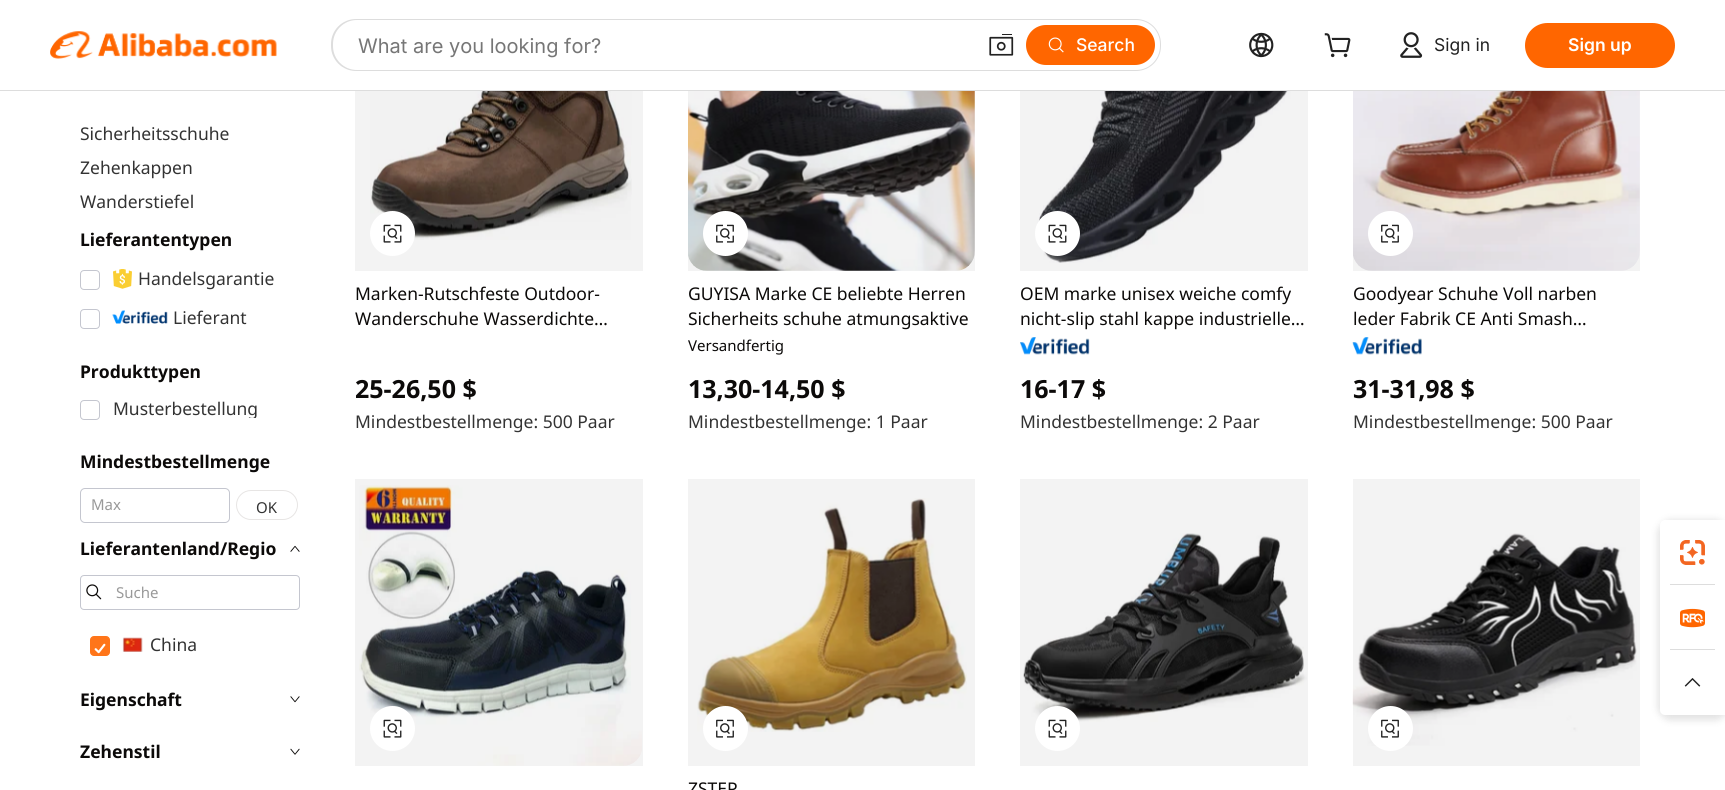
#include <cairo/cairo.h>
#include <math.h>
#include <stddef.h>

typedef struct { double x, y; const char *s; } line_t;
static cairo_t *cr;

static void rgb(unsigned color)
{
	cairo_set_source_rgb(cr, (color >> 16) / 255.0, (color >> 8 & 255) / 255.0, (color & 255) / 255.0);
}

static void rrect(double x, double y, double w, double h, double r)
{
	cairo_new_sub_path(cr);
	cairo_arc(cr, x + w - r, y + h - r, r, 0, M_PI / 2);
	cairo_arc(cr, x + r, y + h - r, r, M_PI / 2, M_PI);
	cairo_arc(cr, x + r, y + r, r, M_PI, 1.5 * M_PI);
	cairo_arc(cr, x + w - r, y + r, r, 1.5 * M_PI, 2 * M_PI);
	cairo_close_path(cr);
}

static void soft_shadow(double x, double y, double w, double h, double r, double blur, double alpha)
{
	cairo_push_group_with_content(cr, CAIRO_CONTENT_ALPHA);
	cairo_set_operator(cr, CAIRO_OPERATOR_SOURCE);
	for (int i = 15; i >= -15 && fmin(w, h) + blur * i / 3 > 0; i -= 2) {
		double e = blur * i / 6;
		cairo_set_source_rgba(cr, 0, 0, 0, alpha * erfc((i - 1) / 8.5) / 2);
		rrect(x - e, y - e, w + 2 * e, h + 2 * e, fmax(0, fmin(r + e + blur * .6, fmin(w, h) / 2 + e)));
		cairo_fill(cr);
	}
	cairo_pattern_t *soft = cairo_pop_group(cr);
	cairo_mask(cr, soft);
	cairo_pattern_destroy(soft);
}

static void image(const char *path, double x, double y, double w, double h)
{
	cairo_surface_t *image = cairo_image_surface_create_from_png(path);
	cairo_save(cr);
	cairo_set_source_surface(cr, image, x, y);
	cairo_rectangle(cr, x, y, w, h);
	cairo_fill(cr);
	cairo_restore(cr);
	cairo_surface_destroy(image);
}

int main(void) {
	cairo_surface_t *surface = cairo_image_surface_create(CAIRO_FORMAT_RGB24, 1725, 790);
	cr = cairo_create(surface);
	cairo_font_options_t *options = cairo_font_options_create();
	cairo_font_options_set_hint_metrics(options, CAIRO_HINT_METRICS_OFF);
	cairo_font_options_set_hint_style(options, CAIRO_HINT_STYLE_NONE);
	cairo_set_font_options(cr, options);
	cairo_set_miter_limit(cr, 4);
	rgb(0xffffff);
	cairo_paint(cr);
	rgb(0xdddddd);
	cairo_rectangle(cr, 0, 90, 1725, 1);
	cairo_fill(cr);
	image("img/1.png", 50, 31, 227, 28);
	rrect(331, 19, 830, 52, 25);
	cairo_fill(cr);
	rgb(0xffffff);
	rrect(333, 20, 827, 50, 24);
	cairo_fill(cr);
	image("img/2.png", 989, 34, 25, 22);
	rgb(0xff6600);
	rrect(1026, 25, 129, 40, 20);
	cairo_fill(cr);
	image("img/3.png", 1048, 37, 16, 16);
	image("img/4.png", 1249, 32, 25, 26);
	image("img/5.png", 1324, 33, 27, 25);
	image("img/6.png", 1400, 32, 23, 26);
	rrect(1525, 23, 150, 45, 22.5);
	cairo_fill(cr);
	rrect(80.5, 270.5, 19, 19, 3.5);
	rgb(0xc4c6cf);
	cairo_set_line_width(cr, 1);
	cairo_stroke(cr);
	image("img/7.png", 113, 269, 19, 20);
	rrect(80.5, 309.5, 19, 19, 3.5);
	cairo_stroke(cr);
	image("img/8.png", 112, 310, 56, 14);
	rrect(80.5, 400.5, 19, 19, 3.5);
	cairo_stroke(cr);
	rrect(80.5, 488.5, 149, 34, 4.5);
	cairo_stroke(cr);
	rrect(236.5, 490.5, 61, 29, 14.5);
	rgb(0xe7e5e4);
	cairo_stroke(cr);
	image("img/9.png", 290, 545, 10, 7);
	rrect(80.5, 575.5, 219, 34, 3.5);
	rgb(0xc4c6cf);
	cairo_stroke(cr);
	image("img/10.png", 86, 584, 16, 16);
	rgb(0xff7519);
	rrect(90.5, 636.5, 19, 19, 3.5);
	cairo_fill_preserve(cr);
	cairo_stroke(cr);
	image("img/11.png", 94, 643, 12, 11);
	image("img/12.png", 122, 637, 21, 15);
	image("img/13.png", 290, 696, 10, 7);
	image("img/14.png", 290, 748, 10, 7);
	image("img/15.png", 370, 91, 262, 149);
	cairo_set_source_rgba(cr, 0, 0, 0, 0.05);
	cairo_rectangle(cr, 355, 91, 288, 180);
	cairo_fill(cr);
	rgb(0xffffff);
	cairo_arc(cr, 392.5, 233.5, 22.5, 0, 2 * M_PI);
	cairo_fill(cr);
	image("img/16.png", 383, 224, 19, 19);
	image("img/17.png", 688, 91, 287, 180);
	cairo_set_source_rgba(cr, 0, 0, 0, 0.05);
	cairo_rectangle(cr, 688, 91, 287, 180);
	cairo_fill(cr);
	rgb(0xffffff);
	cairo_arc(cr, 725.5, 233.5, 22.5, 0, 2 * M_PI);
	cairo_fill(cr);
	image("img/18.png", 716, 224, 18, 19);
	image("img/19.png", 1037, 91, 254, 172);
	cairo_set_source_rgba(cr, 0, 0, 0, 0.05);
	cairo_rectangle(cr, 1020, 91, 288, 180);
	cairo_fill(cr);
	rgb(0xffffff);
	cairo_arc(cr, 1057.5, 233.5, 22.5, 0, 2 * M_PI);
	cairo_fill(cr);
	image("img/16.png", 1048, 224, 19, 19);
	image("img/20.png", 1020, 337, 70, 18);
	image("img/21.png", 1353, 91, 287, 180);
	cairo_set_source_rgba(cr, 0, 0, 0, 0.05);
	cairo_rectangle(cr, 1353, 91, 287, 180);
	cairo_fill(cr);
	rgb(0xffffff);
	cairo_arc(cr, 1390.5, 233.5, 22.5, 0, 2 * M_PI);
	cairo_fill(cr);
	image("img/18.png", 1381, 224, 18, 19);
	image("img/22.png", 1352, 337, 70, 18);
	image("img/23.png", 359, 485, 283, 281);
	cairo_set_source_rgba(cr, 0, 0, 0, 0.05);
	cairo_rectangle(cr, 355, 479, 288, 287);
	cairo_fill(cr);
	rgb(0xffffff);
	cairo_arc(cr, 392.5, 728.5, 22.5, 0, 2 * M_PI);
	cairo_fill(cr);
	image("img/16.png", 383, 719, 19, 19);
	image("img/24.png", 1023, 533, 284, 189);
	cairo_set_source_rgba(cr, 0, 0, 0, 0.05);
	cairo_rectangle(cr, 1020, 479, 288, 287);
	cairo_fill(cr);
	rgb(0xffffff);
	cairo_arc(cr, 1057.5, 728.5, 22.5, 0, 2 * M_PI);
	cairo_fill(cr);
	image("img/16.png", 1048, 719, 19, 19);
	image("img/25.png", 1352, 533, 285, 213);
	cairo_set_source_rgba(cr, 0, 0, 0, 0.05);
	cairo_rectangle(cr, 1353, 479, 287, 287);
	cairo_fill(cr);
	rgb(0xffffff);
	cairo_arc(cr, 1390.5, 728.5, 22.5, 0, 2 * M_PI);
	cairo_fill(cr);
	image("img/18.png", 1381, 719, 18, 19);
	image("img/26.png", 697, 498, 270, 234);
	cairo_set_source_rgba(cr, 0, 0, 0, 0.05);
	cairo_rectangle(cr, 688, 479, 287, 287);
	cairo_fill(cr);
	rgb(0xffffff);
	cairo_arc(cr, 725.5, 728.5, 22.5, 0, 2 * M_PI);
	cairo_fill(cr);
	image("img/18.png", 716, 719, 18, 19);
	rgb(0x000000);
	soft_shadow(1658, 520, 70, 200, 13, 4, 0.12);
	rgb(0xffffff);
	cairo_new_path(cr);
	cairo_move_to(cr, 1670, 520);
	cairo_line_to(cr, 1725, 520);
	cairo_line_to(cr, 1725, 715);
	cairo_line_to(cr, 1670, 715);
	cairo_curve_to(cr, 1664.5, 715, 1660, 710.5, 1660, 705);
	cairo_line_to(cr, 1660, 530);
	cairo_curve_to(cr, 1660, 524.5, 1664.5, 520, 1670, 520);
	cairo_close_path(cr);
	cairo_fill(cr);
	rrect(1660, 520, 65, 65, 5);
	cairo_fill(cr);
	image("img/27.png", 1680, 540, 25, 25);
	rgb(0xdddddd);
	cairo_rectangle(cr, 1670, 584, 45, 1);
	cairo_fill(cr);
	image("img/28.png", 1680, 608, 25, 20);
	cairo_rectangle(cr, 1670, 649, 45, 1);
	cairo_fill(cr);
	rgb(0xffffff);
	rrect(1660, 650, 65, 65, 5);
	cairo_fill(cr);
	image("img/29.png", 1684, 678, 17, 9);
	cairo_select_font_face(cr, "Inter", CAIRO_FONT_SLANT_NORMAL, CAIRO_FONT_WEIGHT_NORMAL);
	cairo_set_font_size(cr, 20);
	rgb(0x767676);
	cairo_move_to(cr, 358, 53);
	cairo_show_text(cr, "What are you looking for?");
	cairo_select_font_face(cr, "Inter Medium", CAIRO_FONT_SLANT_NORMAL, CAIRO_FONT_WEIGHT_NORMAL);
	cairo_set_font_size(cr, 17.5);
	rgb(0xffffff);
	cairo_move_to(cr, 1076, 51);
	cairo_show_text(cr, "Search");
	cairo_select_font_face(cr, "Inter", CAIRO_FONT_SLANT_NORMAL, CAIRO_FONT_WEIGHT_NORMAL);
	rgb(0x222222);
	cairo_move_to(cr, 1434, 51);
	cairo_show_text(cr, "Sign in");
	cairo_select_font_face(cr, "Inter SemiBold", CAIRO_FONT_SLANT_NORMAL, CAIRO_FONT_WEIGHT_NORMAL);
	rgb(0xffffff);
	cairo_move_to(cr, 1568, 51);
	cairo_show_text(cr, "Sign up");
	cairo_select_font_face(cr, "Noto Sans", CAIRO_FONT_SLANT_NORMAL, CAIRO_FONT_WEIGHT_NORMAL);
	rgb(0x333333);
	{
		static const line_t items[] = {
			{80, 140, "Sicherheitsschuhe"},
			{80, 174, "Zehenkappen"},
			{80, 208, "Wanderstiefel"},
		};
		for (size_t i = 0; i < sizeof items / sizeof *items; i++) {
			cairo_move_to(cr, items[i].x, items[i].y);
			cairo_show_text(cr, items[i].s);
		}
	}
	cairo_select_font_face(cr, "Noto Sans", CAIRO_FONT_SLANT_NORMAL, CAIRO_FONT_WEIGHT_BOLD);
	rgb(0x0c0a09);
	cairo_move_to(cr, 80, 246);
	cairo_show_text(cr, "Lieferantentypen");
	cairo_select_font_face(cr, "Noto Sans", CAIRO_FONT_SLANT_NORMAL, CAIRO_FONT_WEIGHT_NORMAL);
	rgb(0x333333);
	cairo_move_to(cr, 138, 285);
	cairo_show_text(cr, "Handelsgarantie");
	cairo_move_to(cr, 173, 324);
	cairo_show_text(cr, "Lieferant");
	cairo_select_font_face(cr, "Noto Sans", CAIRO_FONT_SLANT_NORMAL, CAIRO_FONT_WEIGHT_BOLD);
	rgb(0x0c0a09);
	cairo_move_to(cr, 80, 378);
	cairo_show_text(cr, "Produkttypen");
	cairo_save(cr);
	cairo_rectangle(cr, 113, 400, 145, 18);
	cairo_clip(cr);
	cairo_select_font_face(cr, "Noto Sans", CAIRO_FONT_SLANT_NORMAL, CAIRO_FONT_WEIGHT_NORMAL);
	rgb(0x333333);
	cairo_move_to(cr, 113, 415);
	cairo_show_text(cr, "Musterbestellung");
	cairo_restore(cr);
	cairo_move_to(cr, 80, 468);
	cairo_show_text(cr, "Mindestbestellmenge");
	cairo_select_font_face(cr, "Noto Sans", CAIRO_FONT_SLANT_NORMAL, CAIRO_FONT_WEIGHT_NORMAL);
	cairo_set_font_size(cr, 15);
	rgb(0x999999);
	cairo_move_to(cr, 91, 510);
	cairo_show_text(cr, "Max");
	rgb(0x333333);
	cairo_move_to(cr, 256, 513);
	cairo_show_text(cr, "OK");
	cairo_select_font_face(cr, "Noto Sans", CAIRO_FONT_SLANT_NORMAL, CAIRO_FONT_WEIGHT_BOLD);
	cairo_set_font_size(cr, 17.5);
	rgb(0x0c0a09);
	cairo_move_to(cr, 80, 555);
	cairo_show_text(cr, "Lieferantenland/Regio");
	cairo_select_font_face(cr, "Noto Sans", CAIRO_FONT_SLANT_NORMAL, CAIRO_FONT_WEIGHT_NORMAL);
	cairo_set_font_size(cr, 15);
	rgb(0x999999);
	cairo_move_to(cr, 116, 598);
	cairo_show_text(cr, "Suche");
	cairo_set_font_size(cr, 17.5);
	rgb(0x333333);
	cairo_move_to(cr, 150, 651);
	cairo_show_text(cr, "China");
	cairo_select_font_face(cr, "Noto Sans", CAIRO_FONT_SLANT_NORMAL, CAIRO_FONT_WEIGHT_BOLD);
	rgb(0x0c0a09);
	cairo_move_to(cr, 80, 706);
	cairo_show_text(cr, "Eigenschaft");
	cairo_move_to(cr, 80, 758);
	cairo_show_text(cr, "Zehenstil");
	cairo_select_font_face(cr, "Noto Sans", CAIRO_FONT_SLANT_NORMAL, CAIRO_FONT_WEIGHT_NORMAL);
	cairo_move_to(cr, 355, 300);
	cairo_show_text(cr, "Marken-Rutschfeste Outdoor-");
	cairo_move_to(cr, 355, 325);
	cairo_show_text(cr, "Wanderschuhe Wasserdichte…");
	cairo_select_font_face(cr, "Noto Sans", CAIRO_FONT_SLANT_NORMAL, CAIRO_FONT_WEIGHT_BOLD);
	cairo_set_font_size(cr, 25);
	cairo_move_to(cr, 355, 398);
	cairo_show_text(cr, "25-26,50 $");
	cairo_select_font_face(cr, "Noto Sans", CAIRO_FONT_SLANT_NORMAL, CAIRO_FONT_WEIGHT_NORMAL);
	cairo_set_font_size(cr, 17.5);
	rgb(0x333333);
	cairo_move_to(cr, 355, 428);
	cairo_show_text(cr, "Mindestbestellmenge: 500 Paar");
	rgb(0x0c0a09);
	cairo_move_to(cr, 688, 300);
	cairo_show_text(cr, "GUYISA Marke CE beliebte Herren");
	cairo_move_to(cr, 688, 325);
	cairo_show_text(cr, "Sicherheits schuhe atmungsaktive");
	cairo_set_font_size(cr, 15);
	cairo_move_to(cr, 688, 351);
	cairo_show_text(cr, "Versandfertig");
	cairo_select_font_face(cr, "Noto Sans", CAIRO_FONT_SLANT_NORMAL, CAIRO_FONT_WEIGHT_BOLD);
	cairo_set_font_size(cr, 25);
	cairo_move_to(cr, 688, 398);
	cairo_show_text(cr, "13,30-14,50 $");
	cairo_select_font_face(cr, "Noto Sans", CAIRO_FONT_SLANT_NORMAL, CAIRO_FONT_WEIGHT_NORMAL);
	cairo_set_font_size(cr, 17.5);
	rgb(0x333333);
	cairo_move_to(cr, 688, 428);
	cairo_show_text(cr, "Mindestbestellmenge: 1 Paar");
	rgb(0x0c0a09);
	cairo_move_to(cr, 1020, 300);
	cairo_show_text(cr, "OEM marke unisex weiche comfy");
	cairo_move_to(cr, 1020, 325);
	cairo_show_text(cr, "nicht-slip stahl kappe industrielle…");
	cairo_select_font_face(cr, "Noto Sans", CAIRO_FONT_SLANT_NORMAL, CAIRO_FONT_WEIGHT_BOLD);
	cairo_set_font_size(cr, 25);
	cairo_move_to(cr, 1020, 398);
	cairo_show_text(cr, "16-17 $");
	cairo_select_font_face(cr, "Noto Sans", CAIRO_FONT_SLANT_NORMAL, CAIRO_FONT_WEIGHT_NORMAL);
	cairo_set_font_size(cr, 17.5);
	rgb(0x333333);
	cairo_move_to(cr, 1020, 428);
	cairo_show_text(cr, "Mindestbestellmenge: 2 Paar");
	rgb(0x0c0a09);
	cairo_move_to(cr, 1353, 300);
	cairo_show_text(cr, "Goodyear Schuhe Voll narben");
	cairo_move_to(cr, 1353, 325);
	cairo_show_text(cr, "leder Fabrik CE Anti Smash…");
	cairo_select_font_face(cr, "Noto Sans", CAIRO_FONT_SLANT_NORMAL, CAIRO_FONT_WEIGHT_BOLD);
	cairo_set_font_size(cr, 25);
	cairo_move_to(cr, 1353, 398);
	cairo_show_text(cr, "31-31,98 $");
	cairo_select_font_face(cr, "Noto Sans", CAIRO_FONT_SLANT_NORMAL, CAIRO_FONT_WEIGHT_NORMAL);
	cairo_set_font_size(cr, 17.5);
	rgb(0x333333);
	cairo_move_to(cr, 1353, 428);
	cairo_show_text(cr, "Mindestbestellmenge: 500 Paar");
	rgb(0x0c0a09);
	cairo_move_to(cr, 688, 795);
	cairo_show_text(cr, "ZSTEP");
	cairo_surface_write_to_png(surface, "page.png");
	cairo_font_options_destroy(options);
	cairo_destroy(cr);
	cairo_surface_destroy(surface);
	return 0;
}
